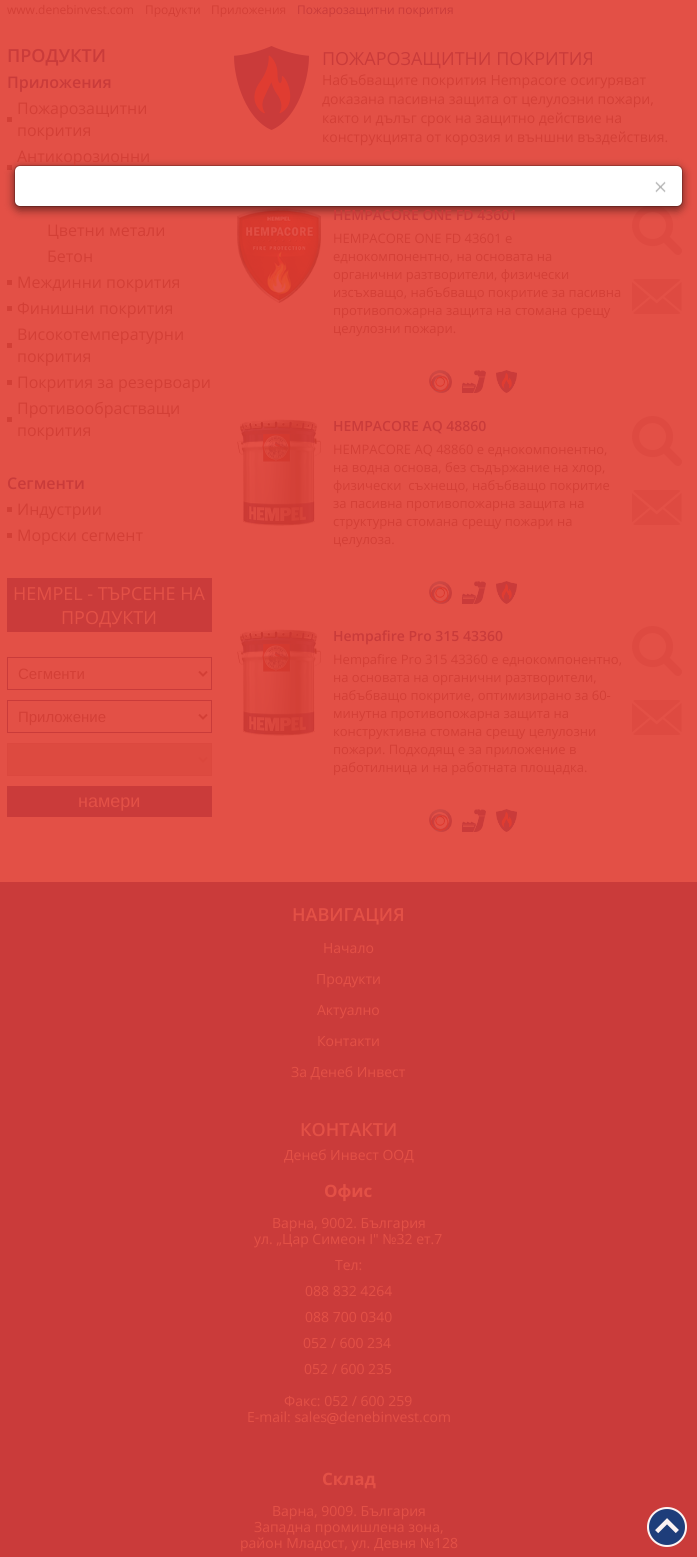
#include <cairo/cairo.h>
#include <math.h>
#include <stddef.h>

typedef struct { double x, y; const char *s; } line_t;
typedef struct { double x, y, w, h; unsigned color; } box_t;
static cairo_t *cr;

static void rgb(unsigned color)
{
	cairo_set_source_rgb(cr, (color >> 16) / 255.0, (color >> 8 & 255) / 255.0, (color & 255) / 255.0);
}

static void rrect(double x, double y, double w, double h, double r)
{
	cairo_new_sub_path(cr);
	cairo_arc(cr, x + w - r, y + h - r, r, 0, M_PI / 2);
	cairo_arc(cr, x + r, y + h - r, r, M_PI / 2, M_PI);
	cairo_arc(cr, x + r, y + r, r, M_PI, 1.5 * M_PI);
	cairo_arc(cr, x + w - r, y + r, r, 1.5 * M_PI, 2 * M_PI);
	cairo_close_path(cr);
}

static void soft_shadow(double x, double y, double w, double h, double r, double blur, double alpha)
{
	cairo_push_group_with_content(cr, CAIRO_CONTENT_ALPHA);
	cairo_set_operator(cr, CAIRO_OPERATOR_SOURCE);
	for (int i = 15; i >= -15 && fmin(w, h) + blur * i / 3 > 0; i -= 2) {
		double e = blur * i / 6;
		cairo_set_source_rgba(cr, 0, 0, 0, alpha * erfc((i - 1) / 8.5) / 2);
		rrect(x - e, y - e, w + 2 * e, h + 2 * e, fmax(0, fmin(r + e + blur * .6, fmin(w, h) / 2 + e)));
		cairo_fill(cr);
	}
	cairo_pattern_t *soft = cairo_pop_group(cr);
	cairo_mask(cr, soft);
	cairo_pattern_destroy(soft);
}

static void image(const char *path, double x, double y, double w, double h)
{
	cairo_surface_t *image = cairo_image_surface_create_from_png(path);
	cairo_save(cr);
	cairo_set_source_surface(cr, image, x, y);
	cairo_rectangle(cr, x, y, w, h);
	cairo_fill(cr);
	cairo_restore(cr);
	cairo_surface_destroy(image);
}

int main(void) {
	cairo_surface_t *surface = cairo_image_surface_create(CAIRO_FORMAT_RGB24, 697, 1557);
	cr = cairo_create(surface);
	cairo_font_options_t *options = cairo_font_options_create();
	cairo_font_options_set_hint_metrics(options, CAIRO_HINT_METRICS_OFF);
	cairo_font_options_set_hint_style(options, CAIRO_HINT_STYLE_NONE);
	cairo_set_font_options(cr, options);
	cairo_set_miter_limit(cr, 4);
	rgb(0xe35046);
	cairo_paint(cr);
	image("img/1.png", 234, 46, 75, 84);
	image("img/2.png", 237, 208, 84, 95);
	image("img/3.png", 429, 370, 23, 23);
	image("img/4.png", 462, 370, 24, 23);
	image("img/5.png", 496, 370, 21, 23);
	image("img/6.png", 632, 206, 50, 49);
	image("img/7.png", 632, 279, 50, 35);
	image("img/8.png", 237, 419, 84, 107);
	image("img/9.png", 429, 581, 23, 23);
	image("img/10.png", 462, 581, 24, 23);
	image("img/11.png", 496, 581, 21, 23);
	image("img/12.png", 632, 416, 50, 50);
	image("img/13.png", 632, 490, 50, 35);
	image("img/8.png", 237, 629, 84, 107);
	image("img/3.png", 429, 809, 23, 23);
	image("img/4.png", 462, 809, 24, 23);
	image("img/5.png", 496, 809, 21, 23);
	image("img/14.png", 632, 626, 50, 50);
	image("img/7.png", 632, 700, 50, 35);
	{
		static const box_t items[] = {
			{7, 117, 5, 5, 0xd33f36},
			{7, 165, 5, 5, 0xd33f36},
			{7, 280, 5, 5, 0xd33f36},
			{7, 306, 5, 5, 0xd33f36},
			{7, 343, 5, 5, 0xd33f36},
			{7, 380, 5, 5, 0xd33f36},
			{7, 417, 5, 5, 0xd33f36},
			{7, 507, 5, 5, 0xd33f36},
			{7, 533, 5, 5, 0xd33f36},
			{7, 578, 205, 54, 0xca3b3a},
		};
		for (size_t i = 0; i < sizeof items / sizeof *items; i++) {
			rgb(items[i].color);
			cairo_rectangle(cr, items[i].x, items[i].y, items[i].w, items[i].h);
			cairo_fill(cr);
		}
	}
	cairo_rectangle(cr, 7.5, 657.5, 204, 32);
	cairo_set_line_width(cr, 1);
	cairo_stroke(cr);
	cairo_new_path(cr);
	cairo_move_to(cr, 199, 671.5);
	cairo_line_to(cr, 203, 675.5);
	cairo_line_to(cr, 207, 671.5);
	rgb(0xd33f36);
	cairo_set_line_width(cr, 2);
	cairo_stroke(cr);
	cairo_rectangle(cr, 7.5, 700.5, 204, 32);
	rgb(0xca3b3a);
	cairo_set_line_width(cr, 1);
	cairo_stroke(cr);
	cairo_new_path(cr);
	cairo_move_to(cr, 199, 714.5);
	cairo_line_to(cr, 203, 718.5);
	cairo_line_to(cr, 207, 714.5);
	rgb(0xd33f36);
	cairo_set_line_width(cr, 2);
	cairo_stroke(cr);
	rgb(0xdd4a40);
	cairo_rectangle(cr, 7.5, 743.5, 204, 32);
	cairo_fill_preserve(cr);
	rgb(0xdc483f);
	cairo_set_line_width(cr, 1);
	cairo_stroke(cr);
	cairo_new_path(cr);
	cairo_move_to(cr, 199, 757.5);
	cairo_line_to(cr, 203, 761.5);
	cairo_line_to(cr, 207, 757.5);
	rgb(0xdb473d);
	cairo_set_line_width(cr, 2);
	cairo_stroke(cr);
	rgb(0xca3b3a);
	cairo_rectangle(cr, 7, 786, 205, 31);
	cairo_fill(cr);
	cairo_rectangle(cr, 0, 882, 697, 675);
	cairo_fill(cr);
	image("img/15.png", 327, 1413, 12, 11);
	rgb(0x000000);
	soft_shadow(14, 168, 669, 42, 6, 4.5, 0.5);
	rgb(0xffffff);
	rrect(15, 166, 667, 40, 5);
	cairo_fill(cr);
	image("img/17.png", 647, 1507, 40, 40);
	cairo_select_font_face(cr, "Open Sans", CAIRO_FONT_SLANT_NORMAL, CAIRO_FONT_WEIGHT_NORMAL);
	cairo_set_font_size(cr, 12);
	rgb(0xd33f36);
	{
		static const line_t items[] = {
			{7, 14, "www.denebinvest.com"},
			{145, 14, "Продукти"},
			{211, 14, "Приложения"},
		};
		for (size_t i = 0; i < sizeof items / sizeof *items; i++) {
			cairo_move_to(cr, items[i].x, items[i].y);
			cairo_show_text(cr, items[i].s);
		}
	}
	rgb(0xca3b3a);
	cairo_move_to(cr, 297, 14);
	cairo_show_text(cr, "Пожарозащитни покрития");
	cairo_set_font_size(cr, 18);
	cairo_move_to(cr, 322, 65);
	cairo_show_text(cr, "ПОЖАРОЗАЩИТНИ ПОКРИТИЯ");
	cairo_set_font_size(cr, 14);
	rgb(0xd33f36);
	{
		static const line_t items[] = {
			{322, 85, "Набъбващите покрития Hempacore осигуряват"},
			{322, 104, "доказана пасивна защита от целулозни пожари,"},
			{322, 123, "както и дълъг срок на защитно действие на"},
			{322, 142, "конструкцията от корозия и външни въздействия."},
		};
		for (size_t i = 0; i < sizeof items / sizeof *items; i++) {
			cairo_move_to(cr, items[i].x, items[i].y);
			cairo_show_text(cr, items[i].s);
		}
	}
	cairo_select_font_face(cr, "Open Sans SemiBold", CAIRO_FONT_SLANT_NORMAL, CAIRO_FONT_WEIGHT_NORMAL);
	rgb(0xca3b3a);
	cairo_move_to(cr, 333, 220);
	cairo_show_text(cr, "HEMPACORE ONE FD 43601");
	cairo_select_font_face(cr, "Open Sans", CAIRO_FONT_SLANT_NORMAL, CAIRO_FONT_WEIGHT_NORMAL);
	cairo_set_font_size(cr, 13);
	rgb(0xd33f36);
	{
		static const line_t items[] = {
			{333, 243, "HEMPACORE ONE FD 43601 е"},
			{333, 261, "еднокомпонентно, на основата на"},
			{333, 279, "органични разтворители, физически"},
			{333, 297, "изсъхващо, набъбващо покритие за пасивна"},
			{333, 315, "противопожарна защита на стомана срещу"},
			{333, 333, "целулозни пожари."},
		};
		for (size_t i = 0; i < sizeof items / sizeof *items; i++) {
			cairo_move_to(cr, items[i].x, items[i].y);
			cairo_show_text(cr, items[i].s);
		}
	}
	cairo_select_font_face(cr, "Open Sans SemiBold", CAIRO_FONT_SLANT_NORMAL, CAIRO_FONT_WEIGHT_NORMAL);
	cairo_set_font_size(cr, 14);
	rgb(0xca3b3a);
	cairo_move_to(cr, 333, 431);
	cairo_show_text(cr, "HEMPACORE AQ 48860");
	cairo_select_font_face(cr, "Open Sans", CAIRO_FONT_SLANT_NORMAL, CAIRO_FONT_WEIGHT_NORMAL);
	cairo_set_font_size(cr, 13);
	rgb(0xd33f36);
	{
		static const line_t items[] = {
			{333, 454, "HEMPACORE AQ 48860 е еднокомпонентно,"},
			{333, 472, "на водна основа, без съдържание на хлор,"},
			{333, 490, "физически  съхнещо, набъбващо покритие"},
			{333, 508, "за пасивна противопожарна защита на"},
			{333, 526, "структурна стомана срещу пожари на"},
			{333, 544, "целулоза."},
		};
		for (size_t i = 0; i < sizeof items / sizeof *items; i++) {
			cairo_move_to(cr, items[i].x, items[i].y);
			cairo_show_text(cr, items[i].s);
		}
	}
	cairo_select_font_face(cr, "Open Sans SemiBold", CAIRO_FONT_SLANT_NORMAL, CAIRO_FONT_WEIGHT_NORMAL);
	cairo_set_font_size(cr, 14);
	rgb(0xca3b3a);
	cairo_move_to(cr, 333, 641);
	cairo_show_text(cr, "Hempafire Pro 315 43360");
	cairo_select_font_face(cr, "Open Sans", CAIRO_FONT_SLANT_NORMAL, CAIRO_FONT_WEIGHT_NORMAL);
	cairo_set_font_size(cr, 13);
	rgb(0xd33f36);
	{
		static const line_t items[] = {
			{333, 664, "Hempafire Pro 315 43360 е еднокомпонентно,"},
			{333, 682, "на основата на органични разтворители,"},
			{333, 700, "набъбващо покритие, оптимизирано за 60-"},
			{333, 718, "минутна противопожарна защита на"},
			{333, 736, "конструктивна стомана срещу целулозни"},
			{333, 754, "пожари. Подходящ е за приложение в"},
			{333, 772, "работилница и на работната площадка."},
		};
		for (size_t i = 0; i < sizeof items / sizeof *items; i++) {
			cairo_move_to(cr, items[i].x, items[i].y);
			cairo_show_text(cr, items[i].s);
		}
	}
	cairo_select_font_face(cr, "Open Sans SemiBold", CAIRO_FONT_SLANT_NORMAL, CAIRO_FONT_WEIGHT_NORMAL);
	cairo_set_font_size(cr, 18);
	rgb(0xca3b3a);
	cairo_move_to(cr, 7, 62);
	cairo_show_text(cr, "ПРОДУКТИ");
	cairo_set_font_size(cr, 16);
	cairo_move_to(cr, 7, 88);
	cairo_show_text(cr, "Приложения");
	cairo_select_font_face(cr, "Open Sans", CAIRO_FONT_SLANT_NORMAL, CAIRO_FONT_WEIGHT_NORMAL);
	rgb(0xd33f36);
	{
		static const line_t items[] = {
			{17, 114, "Пожарозащитни"},
			{17, 136, "покрития"},
			{17, 162, "Антикорозионни"},
			{47, 236, "Цветни метали"},
			{47, 262, "Бетон"},
			{17, 288, "Междинни покрития"},
			{17, 314, "Финишни покрития"},
			{17, 340, "Високотемпературни"},
			{17, 362, "покрития"},
			{17, 388, "Покрития за резервоари"},
			{17, 414, "Противообрастващи"},
			{17, 436, "покрития"},
		};
		for (size_t i = 0; i < sizeof items / sizeof *items; i++) {
			cairo_move_to(cr, items[i].x, items[i].y);
			cairo_show_text(cr, items[i].s);
		}
	}
	cairo_select_font_face(cr, "Open Sans SemiBold", CAIRO_FONT_SLANT_NORMAL, CAIRO_FONT_WEIGHT_NORMAL);
	rgb(0xca3b3a);
	cairo_move_to(cr, 7, 489);
	cairo_show_text(cr, "Сегменти");
	cairo_select_font_face(cr, "Open Sans", CAIRO_FONT_SLANT_NORMAL, CAIRO_FONT_WEIGHT_NORMAL);
	rgb(0xd33f36);
	cairo_move_to(cr, 17, 515);
	cairo_show_text(cr, "Индустрии");
	cairo_move_to(cr, 17, 541);
	cairo_show_text(cr, "Морски сегмент");
	cairo_set_font_size(cr, 18);
	rgb(0xe35046);
	cairo_move_to(cr, 13, 600);
	cairo_show_text(cr, "HEMPEL - ТЪРСЕНЕ НА");
	cairo_move_to(cr, 61, 624);
	cairo_show_text(cr, "ПРОДУКТИ");
	cairo_select_font_face(cr, "Liberation Sans", CAIRO_FONT_SLANT_NORMAL, CAIRO_FONT_WEIGHT_NORMAL);
	cairo_set_font_size(cr, 15);
	rgb(0xd33f36);
	cairo_move_to(cr, 18, 679);
	cairo_show_text(cr, "Сегменти");
	cairo_move_to(cr, 18, 722);
	cairo_show_text(cr, "Приложение");
	cairo_set_font_size(cr, 18);
	rgb(0xe35046);
	cairo_move_to(cr, 78, 807);
	cairo_show_text(cr, "намери");
	cairo_select_font_face(cr, "Open Sans SemiBold", CAIRO_FONT_SLANT_NORMAL, CAIRO_FONT_WEIGHT_NORMAL);
	cairo_move_to(cr, 292, 921);
	cairo_show_text(cr, "НАВИГАЦИЯ");
	cairo_select_font_face(cr, "Open Sans", CAIRO_FONT_SLANT_NORMAL, CAIRO_FONT_WEIGHT_NORMAL);
	cairo_set_font_size(cr, 14);
	{
		static const line_t items[] = {
			{323, 953, "Начало"},
			{316, 984, "Продукти"},
			{317, 1015, "Актуално"},
			{317, 1046, "Контакти"},
			{291, 1077, "За Денеб Инвест"},
		};
		for (size_t i = 0; i < sizeof items / sizeof *items; i++) {
			cairo_move_to(cr, items[i].x, items[i].y);
			cairo_show_text(cr, items[i].s);
		}
	}
	cairo_select_font_face(cr, "Open Sans SemiBold", CAIRO_FONT_SLANT_NORMAL, CAIRO_FONT_WEIGHT_NORMAL);
	cairo_set_font_size(cr, 18);
	cairo_move_to(cr, 300, 1136);
	cairo_show_text(cr, "КОНТАКТИ");
	cairo_select_font_face(cr, "Open Sans", CAIRO_FONT_SLANT_NORMAL, CAIRO_FONT_WEIGHT_NORMAL);
	cairo_set_font_size(cr, 14);
	cairo_move_to(cr, 284, 1160);
	cairo_show_text(cr, "Денеб Инвест ООД");
	cairo_select_font_face(cr, "Open Sans", CAIRO_FONT_SLANT_NORMAL, CAIRO_FONT_WEIGHT_BOLD);
	cairo_set_font_size(cr, 17);
	cairo_move_to(cr, 324, 1197);
	cairo_show_text(cr, "Офис");
	cairo_select_font_face(cr, "Open Sans", CAIRO_FONT_SLANT_NORMAL, CAIRO_FONT_WEIGHT_NORMAL);
	cairo_set_font_size(cr, 14);
	{
		static const line_t items[] = {
			{272, 1228, "Варна, 9002. България"},
			{254, 1244, "ул. „Цар Симеон I\" №32 ет.7"},
			{335, 1270, "Тел:"},
			{305, 1296, "088 832 4264"},
			{305, 1322, "088 700 0340"},
			{303, 1348, "052 / 600 234"},
			{304, 1374, "052 / 600 235"},
			{284, 1406, "Факс: 052 / 600 259"},
			{247, 1422, "E-mail: sales"},
			{339, 1422, "denebinvest.com"},
		};
		for (size_t i = 0; i < sizeof items / sizeof *items; i++) {
			cairo_move_to(cr, items[i].x, items[i].y);
			cairo_show_text(cr, items[i].s);
		}
	}
	cairo_select_font_face(cr, "Open Sans", CAIRO_FONT_SLANT_NORMAL, CAIRO_FONT_WEIGHT_BOLD);
	cairo_set_font_size(cr, 17);
	cairo_move_to(cr, 322, 1485);
	cairo_show_text(cr, "Склад");
	cairo_select_font_face(cr, "Open Sans", CAIRO_FONT_SLANT_NORMAL, CAIRO_FONT_WEIGHT_NORMAL);
	cairo_set_font_size(cr, 14);
	{
		static const line_t items[] = {
			{272, 1516, "Варна, 9009. България"},
			{254, 1532, "Западна промишлена зона,"},
			{240, 1548, "район Младост, ул. Девня №128"},
		};
		for (size_t i = 0; i < sizeof items / sizeof *items; i++) {
			cairo_move_to(cr, items[i].x, items[i].y);
			cairo_show_text(cr, items[i].s);
		}
	}
	rrect(14.5, 165.5, 668, 41, 5.5);
	cairo_set_source_rgba(cr, 0, 0, 0, 0.2);
	cairo_set_line_width(cr, 1);
	cairo_stroke(cr);
	image("img/16.png", 655, 181, 11, 12);
	cairo_surface_write_to_png(surface, "page.png");
	cairo_font_options_destroy(options);
	cairo_destroy(cr);
	cairo_surface_destroy(surface);
	return 0;
}
